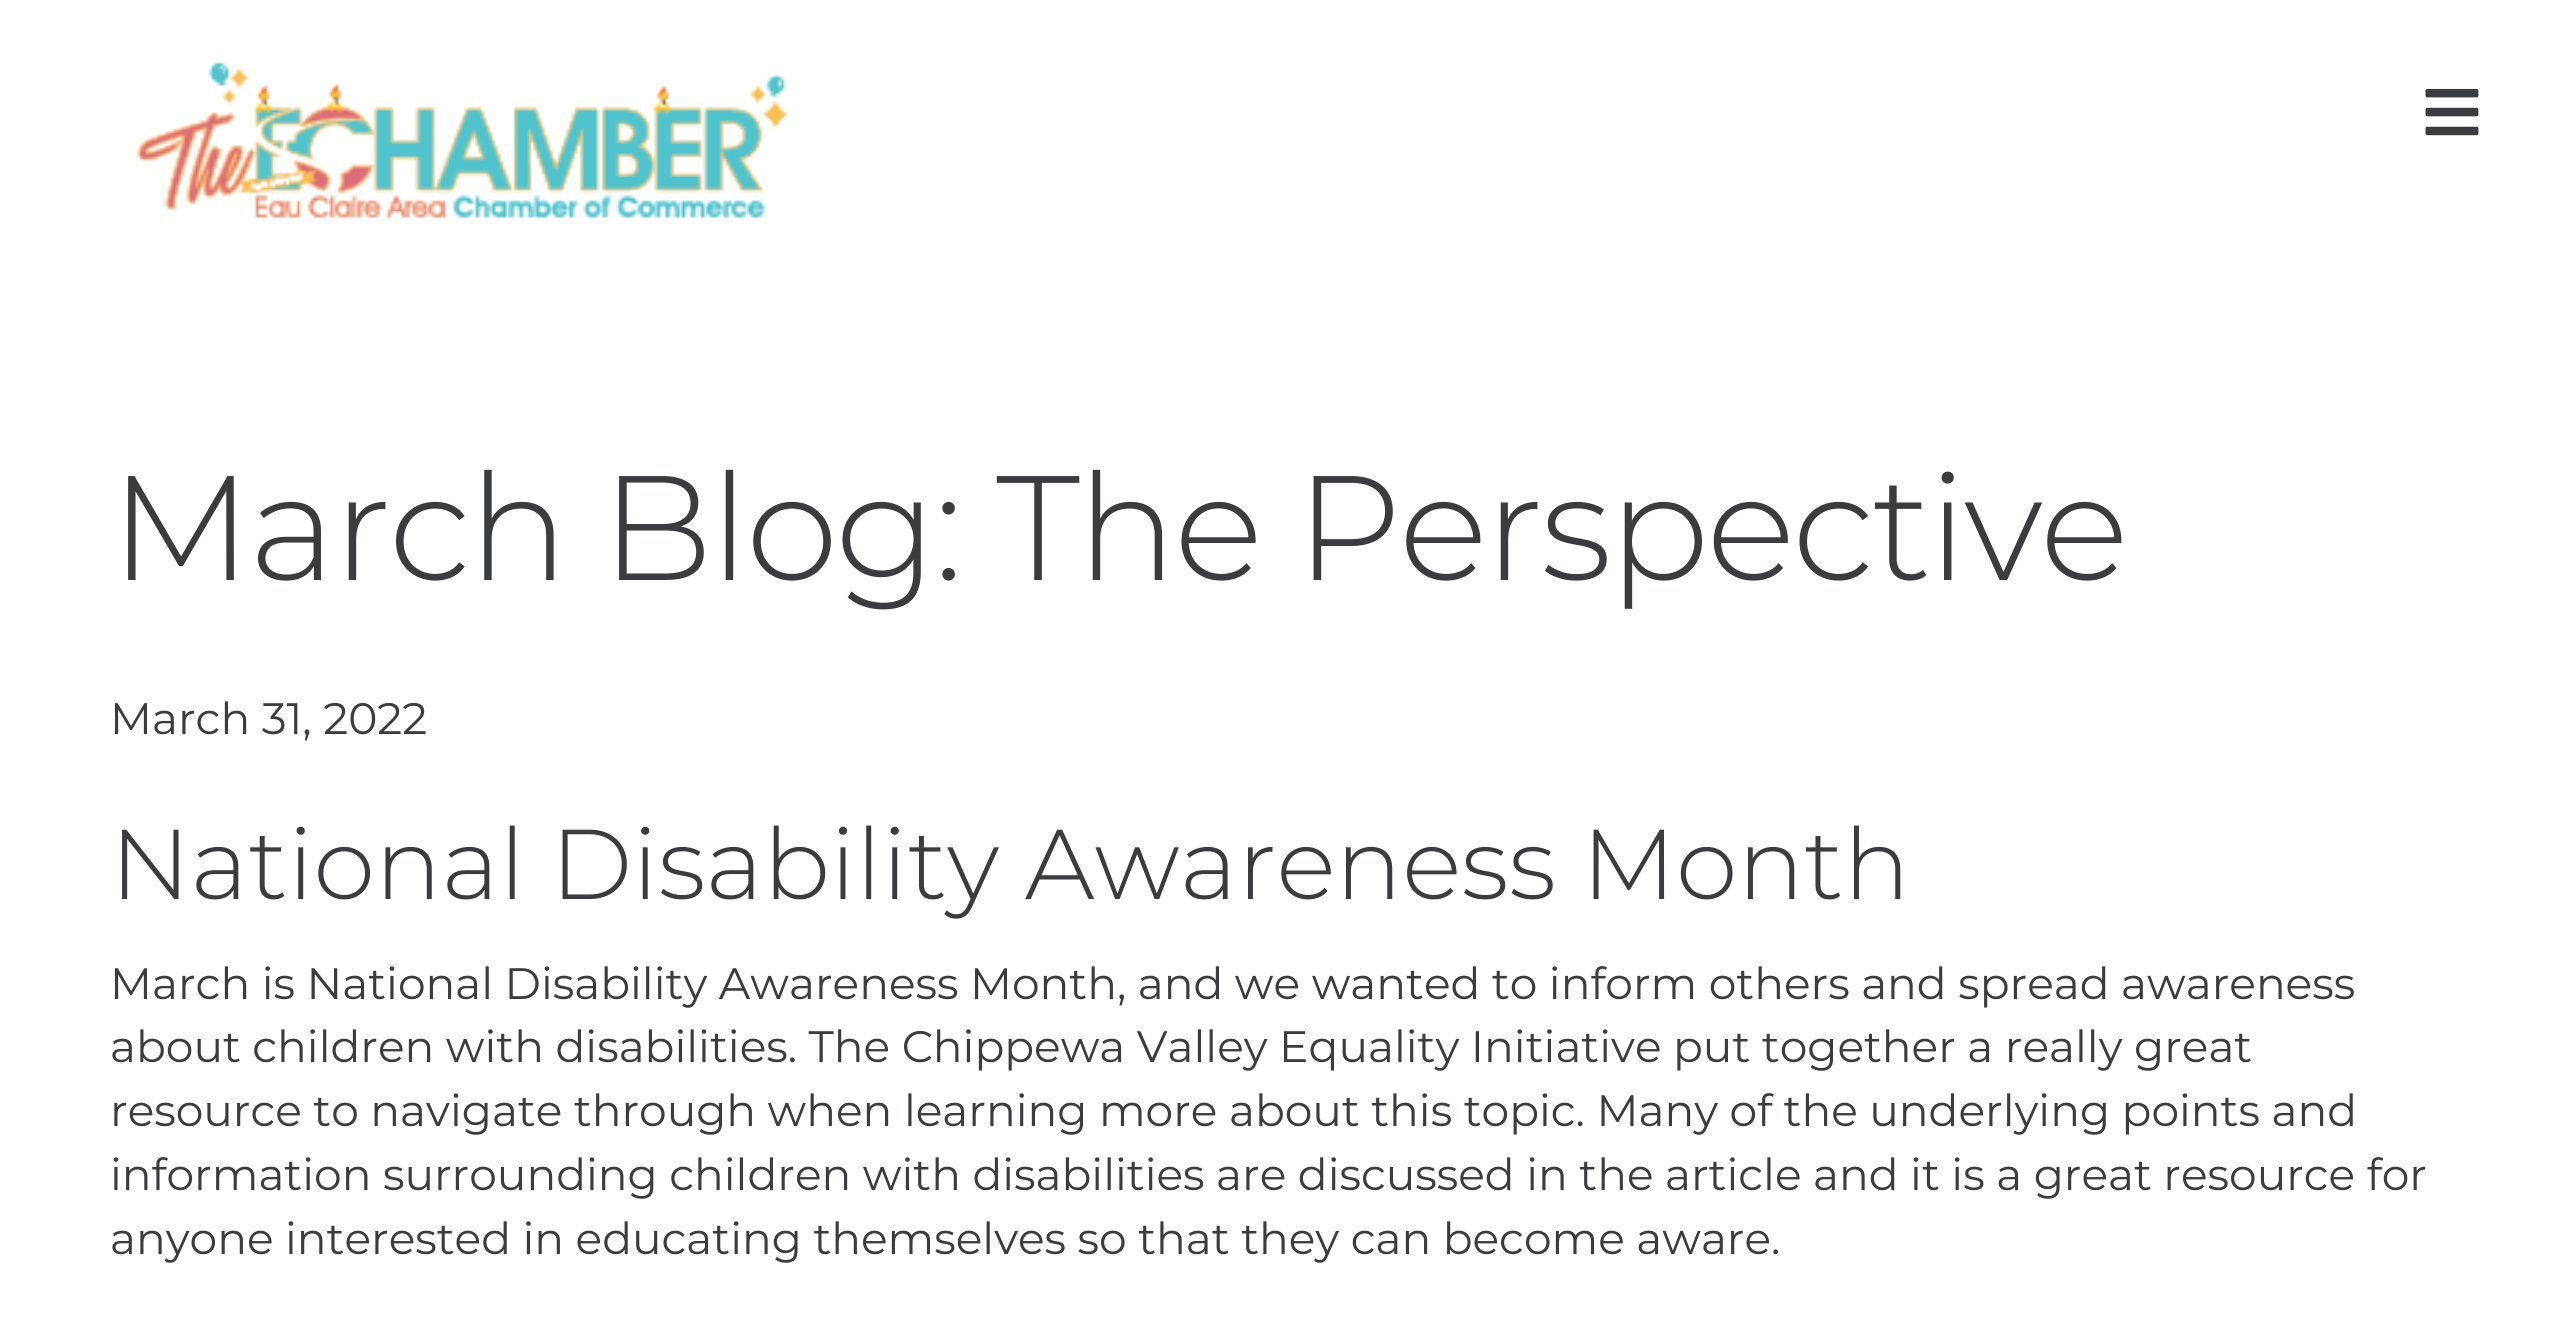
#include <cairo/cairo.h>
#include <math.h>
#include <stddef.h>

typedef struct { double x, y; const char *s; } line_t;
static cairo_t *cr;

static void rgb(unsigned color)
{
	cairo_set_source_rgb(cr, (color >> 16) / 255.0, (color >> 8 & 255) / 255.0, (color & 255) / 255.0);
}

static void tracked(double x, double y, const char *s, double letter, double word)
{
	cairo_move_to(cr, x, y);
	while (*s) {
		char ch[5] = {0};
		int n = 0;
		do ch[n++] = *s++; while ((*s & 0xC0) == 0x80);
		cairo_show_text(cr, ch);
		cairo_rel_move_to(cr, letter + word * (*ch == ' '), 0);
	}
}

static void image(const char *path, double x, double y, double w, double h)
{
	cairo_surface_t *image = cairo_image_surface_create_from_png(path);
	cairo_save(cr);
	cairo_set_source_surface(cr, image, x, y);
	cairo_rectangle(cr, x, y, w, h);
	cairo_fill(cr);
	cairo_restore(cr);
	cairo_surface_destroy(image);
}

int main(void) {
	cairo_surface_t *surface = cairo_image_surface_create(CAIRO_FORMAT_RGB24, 2553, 1317);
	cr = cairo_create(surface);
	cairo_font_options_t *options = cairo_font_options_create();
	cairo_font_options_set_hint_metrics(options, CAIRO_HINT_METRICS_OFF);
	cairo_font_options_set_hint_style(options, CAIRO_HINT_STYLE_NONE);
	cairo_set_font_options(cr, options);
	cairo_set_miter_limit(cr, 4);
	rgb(0xffffff);
	cairo_paint(cr);
	image("img/1.png", 136, 62, 652, 157);
	image("img/2.png", 2425, 88, 54, 48);
	cairo_select_font_face(cr, "Montserrat Light", CAIRO_FONT_SLANT_NORMAL, CAIRO_FONT_WEIGHT_NORMAL);
	cairo_set_font_size(cr, 148.5);
	rgb(0x3b3c3d);
	tracked(110, 580, "March Blog: The Perspective", -2.75, 0);
	cairo_select_font_face(cr, "Montserrat", CAIRO_FONT_SLANT_NORMAL, CAIRO_FONT_WEIGHT_NORMAL);
	cairo_set_font_size(cr, 44);
	cairo_move_to(cr, 110, 734);
	cairo_show_text(cr, "March 31, 2022");
	cairo_select_font_face(cr, "Montserrat Light", CAIRO_FONT_SLANT_NORMAL, CAIRO_FONT_WEIGHT_NORMAL);
	cairo_set_font_size(cr, 99);
	cairo_move_to(cr, 110, 899);
	cairo_show_text(cr, "National Disability Awareness Month");
	cairo_select_font_face(cr, "Montserrat", CAIRO_FONT_SLANT_NORMAL, CAIRO_FONT_WEIGHT_NORMAL);
	cairo_set_font_size(cr, 44);
	{
		static const line_t items[] = {
			{110, 999, "March is National Disability Awareness Month, and we wanted to inform others and spread awareness"},
			{110, 1062, "about children with disabilities. The Chippewa Valley Equality Initiative put together a really great"},
			{110, 1126, "resource to navigate through when learning more about this topic. Many of the underlying points and"},
			{110, 1190, "information surrounding children with disabilities are discussed in the article and it is a great resource for"},
			{110, 1254, "anyone interested in educating themselves so that they can become aware."},
		};
		for (size_t i = 0; i < sizeof items / sizeof *items; i++) {
			cairo_move_to(cr, items[i].x, items[i].y);
			cairo_show_text(cr, items[i].s);
		}
	}
	cairo_surface_write_to_png(surface, "page.png");
	cairo_font_options_destroy(options);
	cairo_destroy(cr);
	cairo_surface_destroy(surface);
	return 0;
}
